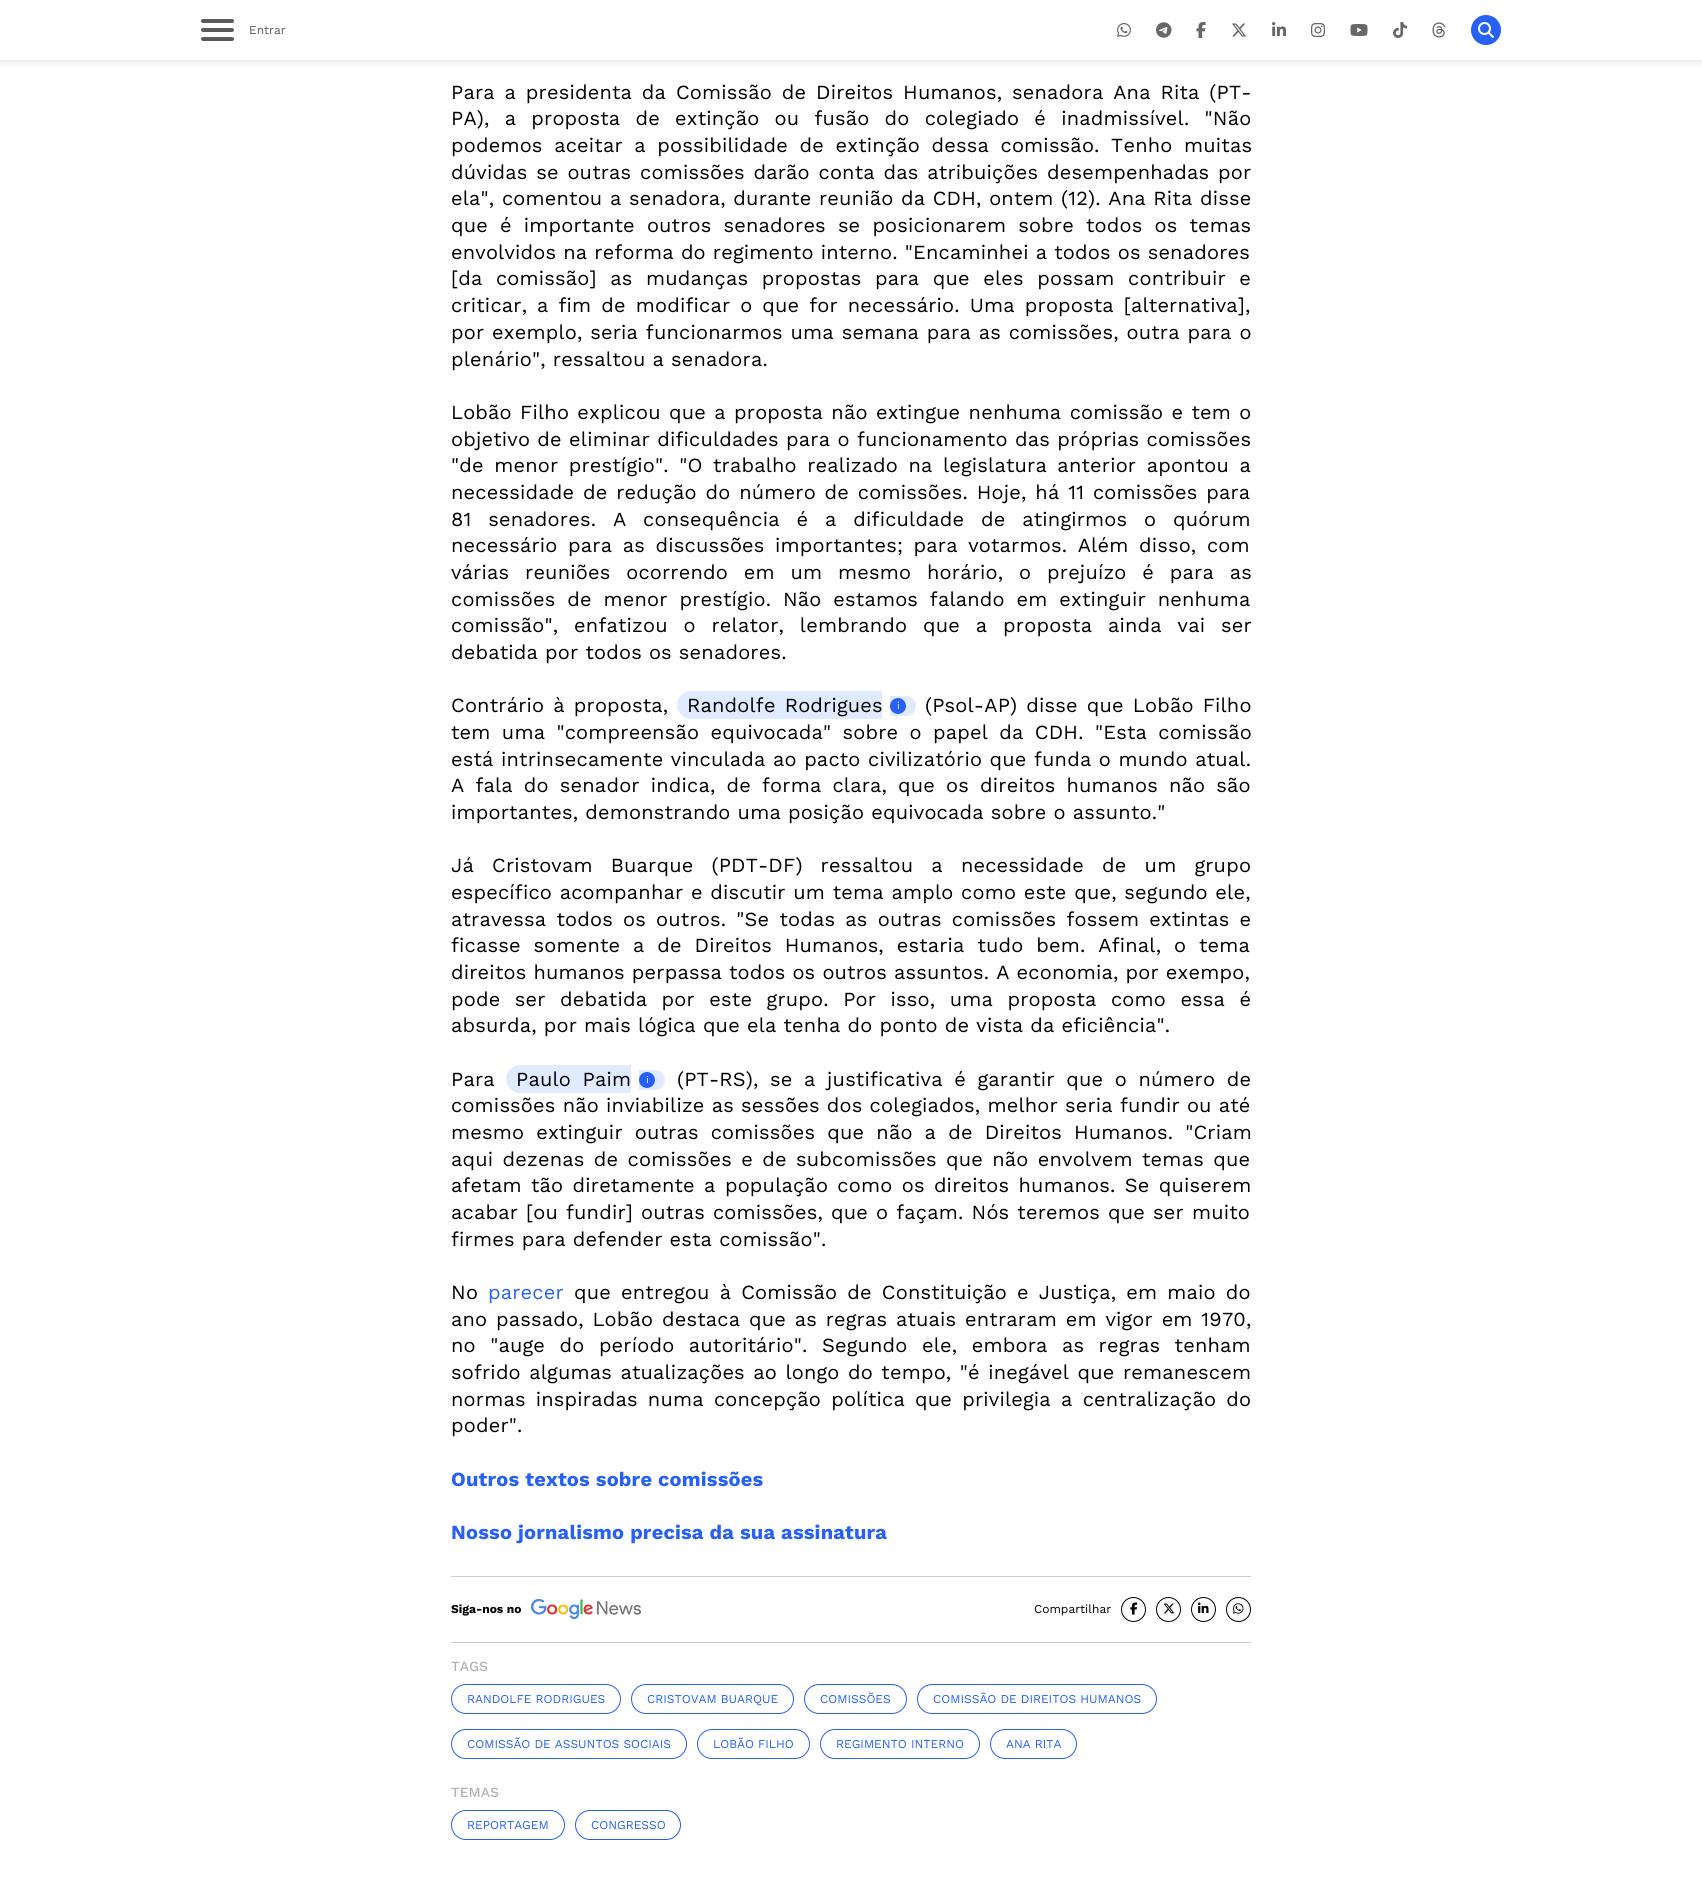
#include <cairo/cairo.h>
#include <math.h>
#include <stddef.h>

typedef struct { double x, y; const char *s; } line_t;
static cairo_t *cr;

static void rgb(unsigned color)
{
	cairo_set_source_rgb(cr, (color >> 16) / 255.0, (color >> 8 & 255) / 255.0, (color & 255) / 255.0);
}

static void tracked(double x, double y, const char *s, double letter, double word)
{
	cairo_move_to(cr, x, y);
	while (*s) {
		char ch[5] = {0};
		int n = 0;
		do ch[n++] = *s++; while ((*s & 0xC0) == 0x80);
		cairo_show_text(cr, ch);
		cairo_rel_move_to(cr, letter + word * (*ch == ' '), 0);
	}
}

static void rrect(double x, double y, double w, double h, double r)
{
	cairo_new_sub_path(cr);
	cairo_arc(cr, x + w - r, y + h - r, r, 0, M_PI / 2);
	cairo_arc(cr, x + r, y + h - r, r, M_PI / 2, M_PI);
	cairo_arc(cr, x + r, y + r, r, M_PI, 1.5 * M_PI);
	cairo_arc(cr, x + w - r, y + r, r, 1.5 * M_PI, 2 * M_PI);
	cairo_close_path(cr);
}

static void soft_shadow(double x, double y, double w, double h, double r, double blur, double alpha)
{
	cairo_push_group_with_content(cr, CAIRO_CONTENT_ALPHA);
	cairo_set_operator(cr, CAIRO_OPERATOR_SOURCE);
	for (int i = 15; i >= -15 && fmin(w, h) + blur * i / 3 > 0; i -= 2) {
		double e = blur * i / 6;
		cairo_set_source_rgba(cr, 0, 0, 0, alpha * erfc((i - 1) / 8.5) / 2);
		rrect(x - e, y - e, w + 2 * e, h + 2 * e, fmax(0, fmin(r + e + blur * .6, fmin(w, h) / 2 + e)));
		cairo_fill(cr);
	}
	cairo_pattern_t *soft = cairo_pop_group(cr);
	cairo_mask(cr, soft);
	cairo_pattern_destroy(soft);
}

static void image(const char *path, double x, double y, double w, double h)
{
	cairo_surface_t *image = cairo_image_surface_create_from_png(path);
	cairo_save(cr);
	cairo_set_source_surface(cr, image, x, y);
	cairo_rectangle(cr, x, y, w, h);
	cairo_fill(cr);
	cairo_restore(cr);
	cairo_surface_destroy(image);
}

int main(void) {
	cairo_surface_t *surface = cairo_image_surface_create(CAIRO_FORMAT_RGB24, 1702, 1894);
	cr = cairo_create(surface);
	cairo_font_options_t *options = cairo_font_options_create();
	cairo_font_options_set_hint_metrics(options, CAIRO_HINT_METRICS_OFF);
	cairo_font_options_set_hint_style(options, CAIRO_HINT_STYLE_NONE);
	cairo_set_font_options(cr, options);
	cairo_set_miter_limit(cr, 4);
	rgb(0xffffff);
	cairo_paint(cr);
	rgb(0x7a7a7a);
	soft_shadow(0, 3, 1702, 60, 0, 3, 0.16);
	rgb(0xffffff);
	cairo_rectangle(cr, 0, 0, 1702, 60);
	cairo_fill(cr);
	rgb(0x5a5a5a);
	rrect(201, 19, 33, 4, 2);
	cairo_fill(cr);
	rrect(201, 28, 33, 4, 2);
	cairo_fill(cr);
	rrect(201, 37, 33, 4, 2);
	cairo_fill(cr);
	image("img/1.png", 1117, 23, 14, 14);
	image("img/2.png", 1156, 22, 16, 16);
	image("img/3.png", 1196, 22, 10, 16);
	image("img/4.png", 1232, 23, 15, 14);
	image("img/5.png", 1272, 22, 14, 14);
	image("img/6.png", 1311, 23, 14, 14);
	image("img/7.png", 1350, 24, 18, 12);
	image("img/8.png", 1393, 22, 14, 16);
	image("img/9.png", 1432, 22, 14, 16);
	rgb(0x2660f5);
	cairo_arc(cr, 1486, 30, 15, 0, 2 * M_PI);
	cairo_fill(cr);
	image("img/10.png", 1478, 22, 16, 16);
	rgb(0xe1ebff);
	cairo_new_path(cr);
	cairo_move_to(cr, 691, 691);
	cairo_line_to(cr, 882, 691);
	cairo_line_to(cr, 882, 719);
	cairo_line_to(cr, 691, 719);
	cairo_curve_to(cr, 683.5, 719, 677, 712.5, 677, 705);
	cairo_curve_to(cr, 677, 697.5, 683.5, 691, 691, 691);
	cairo_close_path(cr);
	cairo_fill(cr);
	cairo_new_path(cr);
	cairo_move_to(cr, 890, 696);
	cairo_line_to(cr, 906, 696);
	cairo_curve_to(cr, 911.5, 696, 916, 700.5, 916, 706);
	cairo_curve_to(cr, 916, 711.5, 911.5, 716, 906, 716);
	cairo_line_to(cr, 890, 716);
	cairo_close_path(cr);
	cairo_fill(cr);
	rgb(0x2660f5);
	cairo_arc(cr, 898, 706, 8, 0, 2 * M_PI);
	cairo_fill(cr);
	rgb(0xe1ebff);
	cairo_new_path(cr);
	cairo_move_to(cr, 520, 1065);
	cairo_line_to(cr, 631, 1065);
	cairo_line_to(cr, 631, 1093);
	cairo_line_to(cr, 520, 1093);
	cairo_curve_to(cr, 512.5, 1093, 506, 1086.5, 506, 1079);
	cairo_curve_to(cr, 506, 1071.5, 512.5, 1065, 520, 1065);
	cairo_close_path(cr);
	cairo_fill(cr);
	cairo_new_path(cr);
	cairo_move_to(cr, 639, 1070);
	cairo_line_to(cr, 655, 1070);
	cairo_curve_to(cr, 660.5, 1070, 665, 1074.5, 665, 1080);
	cairo_curve_to(cr, 665, 1085.5, 660.5, 1090, 655, 1090);
	cairo_line_to(cr, 639, 1090);
	cairo_close_path(cr);
	cairo_fill(cr);
	rgb(0x2660f5);
	cairo_arc(cr, 647, 1080, 8, 0, 2 * M_PI);
	cairo_fill(cr);
	rgb(0xcccccc);
	cairo_rectangle(cr, 451, 1576, 800, 1);
	cairo_fill(cr);
	cairo_rectangle(cr, 451, 1642, 800, 1);
	cairo_fill(cr);
	image("img/11.png", 531, 1599, 110, 20);
	cairo_arc(cr, 1133.5, 1609.5, 12, 0, 2 * M_PI);
	rgb(0x000000);
	cairo_set_line_width(cr, 1);
	cairo_stroke(cr);
	image("img/12.png", 1130, 1602, 8, 13);
	cairo_arc(cr, 1168.5, 1609.5, 12, 0, 2 * M_PI);
	cairo_stroke(cr);
	image("img/13.png", 1163, 1603, 12, 11);
	cairo_arc(cr, 1203.5, 1609.5, 12, 0, 2 * M_PI);
	cairo_stroke(cr);
	image("img/14.png", 1198, 1602, 11, 11);
	cairo_arc(cr, 1238.5, 1609.5, 12, 0, 2 * M_PI);
	cairo_stroke(cr);
	image("img/15.png", 1233, 1603, 11, 11);
	rrect(451.5, 1684.5, 169, 29, 14.5);
	rgb(0x2660f5);
	cairo_stroke(cr);
	rrect(631.5, 1684.5, 162, 29, 14.5);
	cairo_stroke(cr);
	rrect(804.5, 1684.5, 102, 29, 14.5);
	cairo_stroke(cr);
	rrect(917.5, 1684.5, 239, 29, 14.5);
	cairo_stroke(cr);
	rrect(451.5, 1729.5, 235, 29, 14.5);
	cairo_stroke(cr);
	rrect(697.5, 1729.5, 112, 29, 14.5);
	cairo_stroke(cr);
	rrect(820.5, 1729.5, 159, 29, 14.5);
	cairo_stroke(cr);
	rrect(990.5, 1729.5, 86, 29, 14.5);
	cairo_stroke(cr);
	rrect(451.5, 1810.5, 113, 29, 14.5);
	cairo_stroke(cr);
	rrect(575.5, 1810.5, 105, 29, 14.5);
	cairo_stroke(cr);
	cairo_select_font_face(cr, "Work Sans", CAIRO_FONT_SLANT_NORMAL, CAIRO_FONT_WEIGHT_NORMAL);
	cairo_set_font_size(cr, 12);
	rgb(0x5a5a5a);
	cairo_move_to(cr, 249, 34);
	cairo_show_text(cr, "Entrar");
	cairo_set_font_size(cr, 20);
	rgb(0x000000);
	tracked(451, 99, "Para a presidenta da Comissão de Direitos Humanos, senadora Ana Rita (PT-", 0.2, 2.75);
	tracked(451, 125, "PA), a proposta de extinção ou fusão do colegiado é inadmissível. \"Não", 0.2, 8.1);
	tracked(451, 152, "podemos aceitar a possibilidade de extinção dessa comissão. Tenho muitas", 0.2, 4.5);
	tracked(451, 179, "dúvidas se outras comissões darão conta das atribuições desempenhadas por", 0.2, 1.75);
	tracked(451, 205, "ela\", comentou a senadora, durante reunião da CDH, ontem (12). Ana Rita disse", 0.2, 0.5);
	tracked(451, 232, "que é importante outros senadores se posicionarem sobre todos os temas", 0.2, 5);
	tracked(451, 259, "envolvidos na reforma do regimento interno. \"Encaminhei a todos os senadores", 0.2, 0);
	tracked(451, 285, "[da comissão] as mudanças propostas para que eles possam contribuir e", 0.2, 6.5);
	tracked(451, 312, "criticar, a fim de modificar o que for necessário. Uma proposta [alternativa],", 0.2, 2.9);
	tracked(451, 339, "por exemplo, seria funcionarmos uma semana para as comissões, outra para o", 0.2, 0.75);
	tracked(451, 366, "plenário\", ressaltou a senadora.", 0.2, 0);
	tracked(451, 419, "Lobão Filho explicou que a proposta não extingue nenhuma comissão e tem o", 0.2, 1.25);
	tracked(451, 446, "objetivo de eliminar dificuldades para o funcionamento das próprias comissões", 0.2, 0.25);
	tracked(451, 472, "\"de menor prestígio\". \"O trabalho realizado na legislatura anterior apontou a", 0.2, 3.4);
	tracked(451, 499, "necessidade de redução do número de comissões. Hoje, há 11 comissões para", 0.2, 1.75);
	tracked(451, 526, "81 senadores. A consequência é a dificuldade de atingirmos o quórum", 0.2, 9.75);
	tracked(451, 552, "necessário para as discussões importantes; para votarmos. Além disso, com", 0.2, 3.5);
	tracked(451, 579, "várias reuniões ocorrendo em um mesmo horário, o prejuízo é para as", 0.2, 8.75);
	tracked(451, 606, "comissões de menor prestígio. Não estamos falando em extinguir nenhuma", 0.2, 4.75);
	tracked(451, 632, "comissão\", enfatizou o relator, lembrando que a proposta ainda vai ser", 0.2, 8.75);
	tracked(451, 659, "debatida por todos os senadores.", 0.2, 0);
	tracked(451, 712, "Contrário à proposta,", 0.2, 2);
	tracked(687, 712, "Randolfe Rodrigues", 0.2, 2);
	cairo_set_font_size(cr, 10);
	rgb(0xffffff);
	tracked(897, 709, "i", 0.2, 0);
	cairo_set_font_size(cr, 20);
	rgb(0x000000);
	tracked(925, 712, "(Psol-AP) disse que Lobão Filho", 0.2, 2);
	tracked(451, 739, "tem uma \"compreensão equivocada\" sobre o papel da CDH. \"Esta comissão", 0.2, 4.25);
	tracked(451, 766, "está intrinsecamente vinculada ao pacto civilizatório que funda o mundo atual.", 0.2, 0.4);
	tracked(451, 792, "A fala do senador indica, de forma clara, que os direitos humanos não são", 0.2, 4);
	tracked(451, 819, "importantes, demonstrando uma posição equivocada sobre o assunto.\"", 0.2, 0);
	tracked(451, 872, "Já Cristovam Buarque (PDT-DF) ressaltou a necessidade de um grupo", 0.2, 11);
	tracked(451, 899, "específico acompanhar e discutir um tema amplo como este que, segundo ele,", 0.2, 0.6);
	tracked(451, 926, "atravessa todos os outros. \"Se todas as outras comissões fossem extintas e", 0.2, 3.1);
	tracked(451, 952, "ficasse somente a de Direitos Humanos, estaria tudo bem. Afinal, o tema", 0.2, 5.75);
	tracked(451, 979, "direitos humanos perpassa todos os outros assuntos. A economia, por exempo,", 0.2, 0);
	tracked(451, 1006, "pode ser debatida por este grupo. Por isso, uma proposta como essa é", 0.2, 7.4);
	tracked(451, 1032, "absurda, por mais lógica que ela tenha do ponto de vista da eficiência\".", 0.2, 0);
	tracked(451, 1086, "Para", 0.2, 0);
	tracked(516, 1086, "Paulo Paim", 0.2, 4.5);
	cairo_set_font_size(cr, 10);
	rgb(0xffffff);
	tracked(646, 1083, "i", 0.2, 0);
	cairo_set_font_size(cr, 20);
	rgb(0x000000);
	tracked(677, 1086, "(PT-RS), se a justificativa é garantir que o número de", 0.2, 4.5);
	tracked(451, 1112, "comissões não inviabilize as sessões dos colegiados, melhor seria fundir ou até", 0.2, 0.1);
	tracked(451, 1139, "mesmo extinguir outras comissões que não a de Direitos Humanos. \"Criam", 0.2, 5);
	tracked(451, 1166, "aqui dezenas de comissões e de subcomissões que não envolvem temas que", 0.2, 2.25);
	tracked(451, 1192, "afetam tão diretamente a população como os direitos humanos. Se quiserem", 0.2, 2.25);
	tracked(451, 1219, "acabar [ou fundir] outras comissões, que o façam. Nós teremos que ser muito", 0.2, 1);
	tracked(451, 1246, "firmes para defender esta comissão\".", 0.2, 0);
	tracked(451, 1299, "No", 0.2, 0);
	rgb(0x2660f5);
	tracked(488, 1299, "parecer", 0.2, 0);
	rgb(0x000000);
	tracked(574, 1299, "que entregou à Comissão de Constituição e Justiça, em maio do", 0.2, 3);
	tracked(451, 1326, "ano passado, Lobão destaca que as regras atuais entraram em vigor em 1970,", 0.2, 1.7);
	tracked(451, 1352, "no \"auge do período autoritário\". Segundo ele, embora as regras tenham", 0.2, 7.4);
	tracked(451, 1379, "sofrido algumas atualizações ao longo do tempo, \"é inegável que remanescem", 0.2, 1.4);
	tracked(451, 1406, "normas inspiradas numa concepção política que privilegia a centralização do", 0.2, 3.1);
	tracked(451, 1432, "poder\".", 0.2, 0);
	cairo_select_font_face(cr, "Work Sans", CAIRO_FONT_SLANT_NORMAL, CAIRO_FONT_WEIGHT_BOLD);
	rgb(0x2660f5);
	tracked(451, 1486, "Outros textos sobre comissões", 0.2, 0);
	tracked(451, 1539, "Nosso jornalismo precisa da sua assinatura", 0.2, 0);
	cairo_set_font_size(cr, 12);
	rgb(0x000000);
	cairo_move_to(cr, 451, 1613);
	cairo_show_text(cr, "Siga-nos no");
	cairo_select_font_face(cr, "Work Sans", CAIRO_FONT_SLANT_NORMAL, CAIRO_FONT_WEIGHT_NORMAL);
	cairo_move_to(cr, 1034, 1613);
	cairo_show_text(cr, "Compartilhar");
	cairo_select_font_face(cr, "Work Sans Medium", CAIRO_FONT_SLANT_NORMAL, CAIRO_FONT_WEIGHT_NORMAL);
	cairo_set_font_size(cr, 14);
	rgb(0xb2b2b2);
	cairo_move_to(cr, 451, 1671);
	cairo_show_text(cr, "TAGS");
	cairo_select_font_face(cr, "Work Sans", CAIRO_FONT_SLANT_NORMAL, CAIRO_FONT_WEIGHT_NORMAL);
	cairo_set_font_size(cr, 12);
	rgb(0x2660f5);
	{
		static const line_t items[] = {
			{467, 1703, "RANDOLFE RODRIGUES"},
			{647, 1703, "CRISTOVAM BUARQUE"},
			{820, 1703, "COMISSÕES"},
			{933, 1703, "COMISSÃO DE DIREITOS HUMANOS"},
			{467, 1748, "COMISSÃO DE ASSUNTOS SOCIAIS"},
			{713, 1748, "LOBÃO FILHO"},
			{836, 1748, "REGIMENTO INTERNO"},
			{1006, 1748, "ANA RITA"},
		};
		for (size_t i = 0; i < sizeof items / sizeof *items; i++) {
			cairo_move_to(cr, items[i].x, items[i].y);
			cairo_show_text(cr, items[i].s);
		}
	}
	cairo_select_font_face(cr, "Work Sans Medium", CAIRO_FONT_SLANT_NORMAL, CAIRO_FONT_WEIGHT_NORMAL);
	cairo_set_font_size(cr, 14);
	rgb(0xb2b2b2);
	cairo_move_to(cr, 451, 1797);
	cairo_show_text(cr, "TEMAS");
	cairo_select_font_face(cr, "Work Sans", CAIRO_FONT_SLANT_NORMAL, CAIRO_FONT_WEIGHT_NORMAL);
	cairo_set_font_size(cr, 12);
	rgb(0x2660f5);
	cairo_move_to(cr, 467, 1829);
	cairo_show_text(cr, "REPORTAGEM");
	cairo_move_to(cr, 591, 1829);
	cairo_show_text(cr, "CONGRESSO");
	cairo_surface_write_to_png(surface, "page.png");
	cairo_font_options_destroy(options);
	cairo_destroy(cr);
	cairo_surface_destroy(surface);
	return 0;
}
